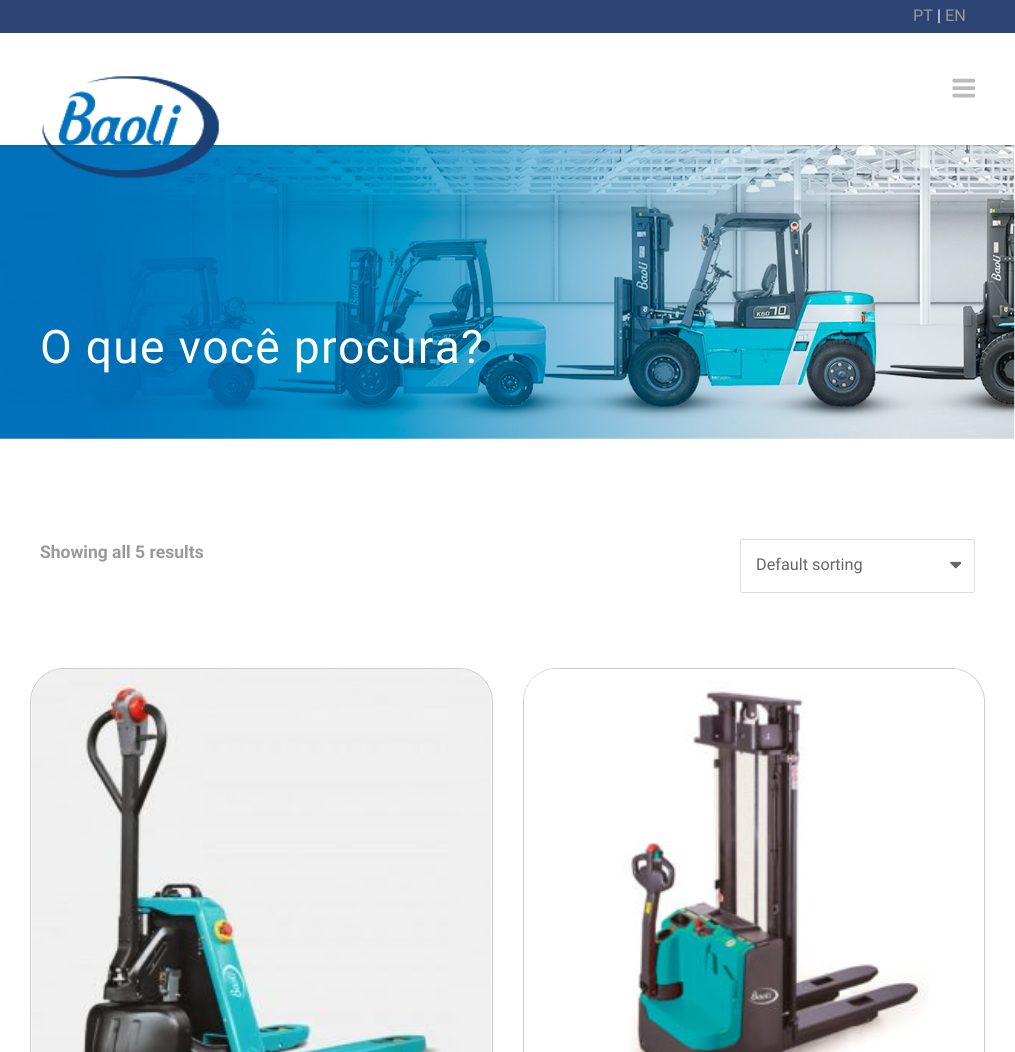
#include <cairo/cairo.h>
#include <math.h>
#include <stddef.h>

static cairo_t *cr;

static void rgb(unsigned color)
{
	cairo_set_source_rgb(cr, (color >> 16) / 255.0, (color >> 8 & 255) / 255.0, (color & 255) / 255.0);
}

static void tracked(double x, double y, const char *s, double letter, double word)
{
	cairo_move_to(cr, x, y);
	while (*s) {
		char ch[5] = {0};
		int n = 0;
		do ch[n++] = *s++; while ((*s & 0xC0) == 0x80);
		cairo_show_text(cr, ch);
		cairo_rel_move_to(cr, letter + word * (*ch == ' '), 0);
	}
}

static void rrect(double x, double y, double w, double h, double r)
{
	cairo_new_sub_path(cr);
	cairo_arc(cr, x + w - r, y + h - r, r, 0, M_PI / 2);
	cairo_arc(cr, x + r, y + h - r, r, M_PI / 2, M_PI);
	cairo_arc(cr, x + r, y + r, r, M_PI, 1.5 * M_PI);
	cairo_arc(cr, x + w - r, y + r, r, 1.5 * M_PI, 2 * M_PI);
	cairo_close_path(cr);
}

static void soft_shadow(double x, double y, double w, double h, double r, double blur, double alpha)
{
	cairo_push_group_with_content(cr, CAIRO_CONTENT_ALPHA);
	cairo_set_operator(cr, CAIRO_OPERATOR_SOURCE);
	for (int i = 15; i >= -15 && fmin(w, h) + blur * i / 3 > 0; i -= 2) {
		double e = blur * i / 6;
		cairo_set_source_rgba(cr, 0, 0, 0, alpha * erfc((i - 1) / 8.5) / 2);
		rrect(x - e, y - e, w + 2 * e, h + 2 * e, fmax(0, fmin(r + e + blur * .6, fmin(w, h) / 2 + e)));
		cairo_fill(cr);
	}
	cairo_pattern_t *soft = cairo_pop_group(cr);
	cairo_mask(cr, soft);
	cairo_pattern_destroy(soft);
}

static void image(const char *path, double x, double y, double w, double h)
{
	cairo_surface_t *image = cairo_image_surface_create_from_png(path);
	cairo_save(cr);
	cairo_set_source_surface(cr, image, x, y);
	cairo_rectangle(cr, x, y, w, h);
	cairo_fill(cr);
	cairo_restore(cr);
	cairo_surface_destroy(image);
}

int main(void) {
	cairo_surface_t *surface = cairo_image_surface_create(CAIRO_FORMAT_RGB24, 1015, 1052);
	cr = cairo_create(surface);
	cairo_font_options_t *options = cairo_font_options_create();
	cairo_font_options_set_hint_metrics(options, CAIRO_HINT_METRICS_OFF);
	cairo_font_options_set_hint_style(options, CAIRO_HINT_STYLE_NONE);
	cairo_set_font_options(cr, options);
	cairo_set_miter_limit(cr, 4);
	rgb(0xffffff);
	cairo_paint(cr);
	image("img/3.png", 0, 145, 1015, 294);
	cairo_save(cr);
	cairo_rectangle(cr, 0, 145, 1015, 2);
	cairo_clip(cr);
	rgb(0x000000);
	soft_shadow(-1, 31, 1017, 115, 0, 1, 0.16);
	cairo_restore(cr);
	rgb(0x2d4373);
	cairo_rectangle(cr, 0, 0, 1015, 33);
	cairo_fill(cr);
	image("img/1.png", 42, 76, 177, 102);
	image("img/2.png", 952, 78, 23, 20);
	image("img/4.png", 950, 561, 11, 8);
	rrect(740.5, 539.5, 234, 53, 2);
	rgb(0xdddddd);
	cairo_set_line_width(cr, 1);
	cairo_stroke(cr);
	rrect(30.5, 668.5, 462, 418, 33.5);
	rgb(0xcccccc);
	cairo_stroke(cr);
	image("img/5.png", 31, 669, 460, 383);
	rrect(523.5, 668.5, 461, 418, 33.5);
	cairo_stroke(cr);
	image("img/6.png", 524, 669, 460, 383);
	cairo_select_font_face(cr, "Roboto", CAIRO_FONT_SLANT_NORMAL, CAIRO_FONT_WEIGHT_NORMAL);
	cairo_set_font_size(cr, 16.25);
	rgb(0x999999);
	cairo_move_to(cr, 913, 21);
	cairo_show_text(cr, "PT");
	rgb(0xffffff);
	cairo_move_to(cr, 937, 21);
	cairo_show_text(cr, "|");
	rgb(0x999999);
	cairo_move_to(cr, 945, 21);
	cairo_show_text(cr, "EN");
	cairo_set_font_size(cr, 46.25);
	rgb(0xffffff);
	tracked(40, 363, "O que você procura?", 1.25, 0);
	cairo_select_font_face(cr, "Roboto", CAIRO_FONT_SLANT_NORMAL, CAIRO_FONT_WEIGHT_BOLD);
	cairo_set_font_size(cr, 17.5);
	rgb(0x999999);
	cairo_move_to(cr, 40, 558);
	cairo_show_text(cr, "Showing all 5 results");
	cairo_select_font_face(cr, "Roboto", CAIRO_FONT_SLANT_NORMAL, CAIRO_FONT_WEIGHT_NORMAL);
	cairo_set_font_size(cr, 16.25);
	rgb(0x666666);
	cairo_move_to(cr, 756, 570);
	cairo_show_text(cr, "Default sorting");
	cairo_surface_write_to_png(surface, "page.png");
	cairo_font_options_destroy(options);
	cairo_destroy(cr);
	cairo_surface_destroy(surface);
	return 0;
}
